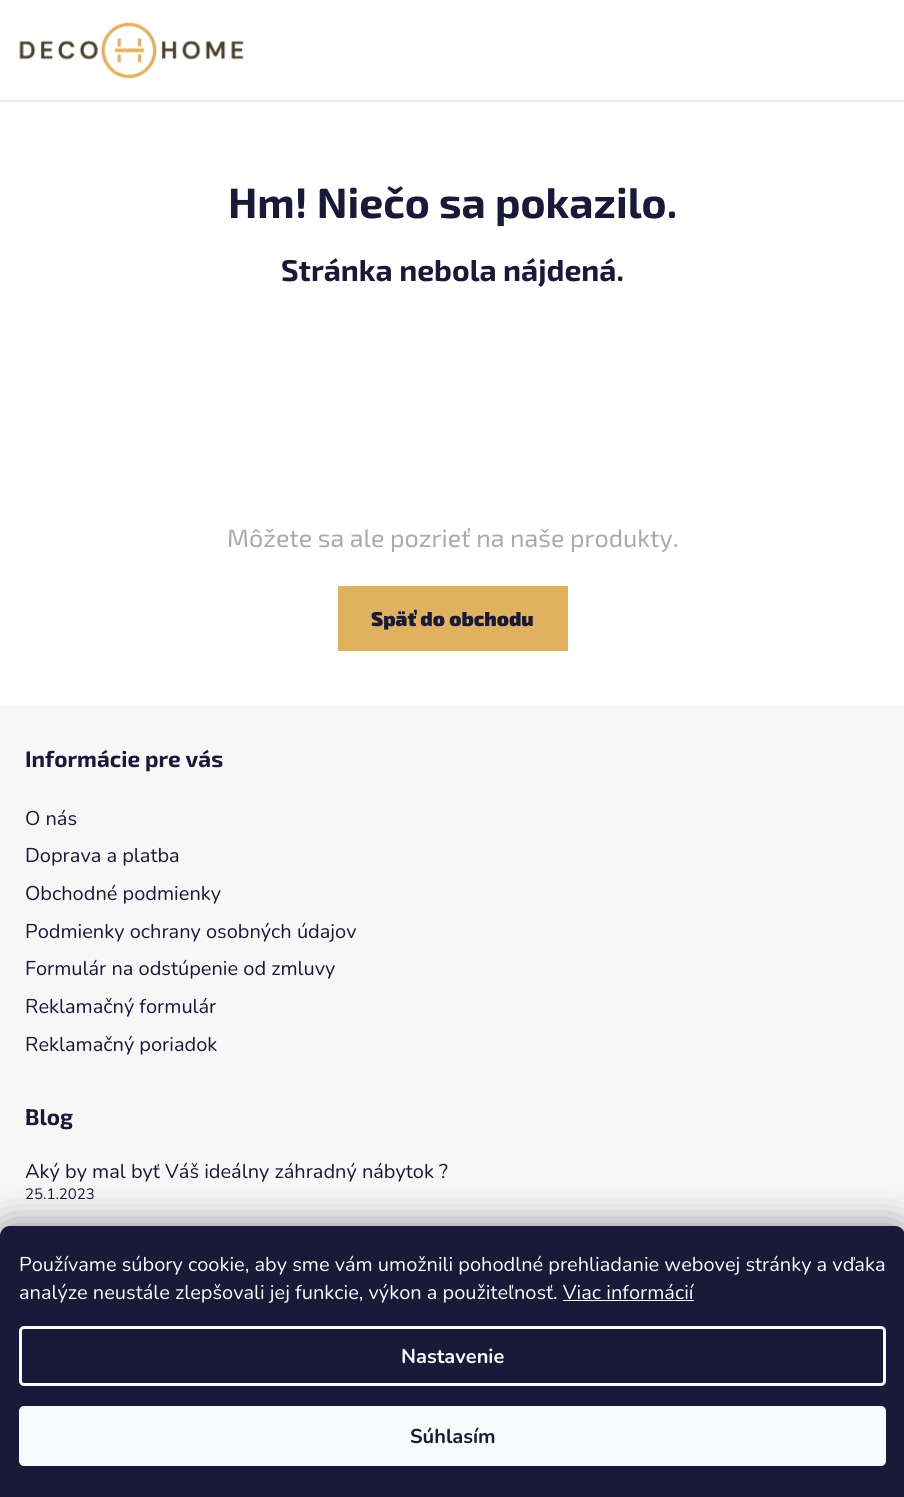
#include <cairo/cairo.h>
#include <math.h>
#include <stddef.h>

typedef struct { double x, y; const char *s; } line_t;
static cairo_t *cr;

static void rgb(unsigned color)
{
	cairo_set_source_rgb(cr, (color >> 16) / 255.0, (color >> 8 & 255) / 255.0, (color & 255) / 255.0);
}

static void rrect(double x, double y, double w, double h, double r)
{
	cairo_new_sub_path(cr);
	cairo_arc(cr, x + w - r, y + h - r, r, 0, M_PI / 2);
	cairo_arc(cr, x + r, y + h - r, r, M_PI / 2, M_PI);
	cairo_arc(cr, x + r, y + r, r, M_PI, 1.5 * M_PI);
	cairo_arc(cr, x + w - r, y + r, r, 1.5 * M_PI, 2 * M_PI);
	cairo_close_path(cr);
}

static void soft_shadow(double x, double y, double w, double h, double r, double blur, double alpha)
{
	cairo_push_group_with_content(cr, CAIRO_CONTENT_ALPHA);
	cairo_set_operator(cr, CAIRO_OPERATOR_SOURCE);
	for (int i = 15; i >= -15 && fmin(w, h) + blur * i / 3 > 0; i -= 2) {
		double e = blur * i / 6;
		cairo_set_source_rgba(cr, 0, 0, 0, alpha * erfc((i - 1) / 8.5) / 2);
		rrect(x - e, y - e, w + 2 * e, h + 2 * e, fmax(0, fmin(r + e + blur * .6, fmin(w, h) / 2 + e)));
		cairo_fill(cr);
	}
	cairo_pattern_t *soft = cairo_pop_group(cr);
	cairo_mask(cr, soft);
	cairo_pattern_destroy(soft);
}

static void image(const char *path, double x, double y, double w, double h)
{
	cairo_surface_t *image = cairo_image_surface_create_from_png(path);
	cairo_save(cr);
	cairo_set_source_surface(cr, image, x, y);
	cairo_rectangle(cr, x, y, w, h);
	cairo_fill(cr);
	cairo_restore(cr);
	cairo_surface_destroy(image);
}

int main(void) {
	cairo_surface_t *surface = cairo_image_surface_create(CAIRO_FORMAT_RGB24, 904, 1497);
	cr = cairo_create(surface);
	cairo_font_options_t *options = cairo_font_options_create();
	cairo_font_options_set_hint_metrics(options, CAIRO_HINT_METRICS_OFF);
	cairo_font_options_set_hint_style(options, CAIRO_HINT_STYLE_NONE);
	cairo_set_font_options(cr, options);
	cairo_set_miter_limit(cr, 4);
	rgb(0xffffff);
	cairo_paint(cr);
	rgb(0x000000);
	soft_shadow(0, 1, 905, 100, 0, 1, 0.16);
	rgb(0xffffff);
	cairo_rectangle(cr, 0, 0, 904, 100);
	cairo_fill(cr);
	image("img/1.png", 19, 22, 225, 57);
	rgb(0xe0b15e);
	cairo_rectangle(cr, 338, 586, 230, 65);
	cairo_fill(cr);
	rgb(0xf7f7f7);
	cairo_rectangle(cr, 0, 706, 904, 530);
	cairo_fill(cr);
	rgb(0x1b1939);
	soft_shadow(0, 1226, 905, 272, 10, 19, 0.5);
	rgb(0x1a1937);
	cairo_new_path(cr);
	cairo_move_to(cr, 10, 1226);
	cairo_line_to(cr, 895, 1226);
	cairo_curve_to(cr, 900.5, 1226, 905, 1230.5, 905, 1236);
	cairo_line_to(cr, 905, 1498);
	cairo_line_to(cr, 0, 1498);
	cairo_line_to(cr, 0, 1236);
	cairo_curve_to(cr, 0, 1230.5, 4.5, 1226, 10, 1226);
	cairo_close_path(cr);
	cairo_fill(cr);
	rgb(0xf8fafb);
	cairo_rectangle(cr, 563, 1300, 131, 1);
	cairo_fill(cr);
	rrect(20.5, 1327.5, 864, 57, 3.5);
	cairo_set_line_width(cr, 3);
	cairo_stroke(cr);
	rrect(19, 1406, 867, 60, 5);
	cairo_fill(cr);
	cairo_select_font_face(cr, "Exo 2", CAIRO_FONT_SLANT_NORMAL, CAIRO_FONT_WEIGHT_BOLD);
	cairo_set_font_size(cr, 42.5);
	rgb(0x1a1937);
	cairo_move_to(cr, 228, 218);
	cairo_show_text(cr, "Hm! Niečo sa pokazilo.");
	cairo_set_font_size(cr, 30);
	cairo_move_to(cr, 281, 281);
	cairo_show_text(cr, "Stránka nebola nájdená.");
	cairo_select_font_face(cr, "Exo 2", CAIRO_FONT_SLANT_NORMAL, CAIRO_FONT_WEIGHT_NORMAL);
	cairo_set_font_size(cr, 25);
	rgb(0xaaaaaa);
	cairo_move_to(cr, 227, 547);
	cairo_show_text(cr, "Môžete sa ale pozrieť na naše produkty.");
	cairo_select_font_face(cr, "Exo 2 Black", CAIRO_FONT_SLANT_NORMAL, CAIRO_FONT_WEIGHT_NORMAL);
	cairo_set_font_size(cr, 20);
	rgb(0x1a1937);
	cairo_move_to(cr, 371, 626);
	cairo_show_text(cr, "Späť do obchodu");
	cairo_select_font_face(cr, "Exo 2", CAIRO_FONT_SLANT_NORMAL, CAIRO_FONT_WEIGHT_BOLD);
	cairo_set_font_size(cr, 22.5);
	cairo_move_to(cr, 25, 767);
	cairo_show_text(cr, "Informácie pre vás");
	cairo_select_font_face(cr, "Nunito", CAIRO_FONT_SLANT_NORMAL, CAIRO_FONT_WEIGHT_NORMAL);
	cairo_set_font_size(cr, 20);
	{
		static const line_t items[] = {
			{25, 825, "O nás"},
			{25, 862, "Doprava a platba"},
			{25, 900, "Obchodné podmienky"},
			{25, 938, "Podmienky ochrany osobných údajov"},
			{25, 975, "Formulár na odstúpenie od zmluvy"},
			{25, 1013, "Reklamačný formulár"},
			{25, 1051, "Reklamačný poriadok"},
		};
		for (size_t i = 0; i < sizeof items / sizeof *items; i++) {
			cairo_move_to(cr, items[i].x, items[i].y);
			cairo_show_text(cr, items[i].s);
		}
	}
	cairo_select_font_face(cr, "Exo 2", CAIRO_FONT_SLANT_NORMAL, CAIRO_FONT_WEIGHT_BOLD);
	cairo_set_font_size(cr, 22.5);
	cairo_move_to(cr, 25, 1125);
	cairo_show_text(cr, "Blog");
	cairo_select_font_face(cr, "Nunito", CAIRO_FONT_SLANT_NORMAL, CAIRO_FONT_WEIGHT_NORMAL);
	cairo_set_font_size(cr, 20);
	cairo_move_to(cr, 25, 1178);
	cairo_show_text(cr, "Aký by mal byť Váš ideálny záhradný nábytok ?");
	cairo_set_font_size(cr, 15);
	cairo_move_to(cr, 25, 1199);
	cairo_show_text(cr, "25.1.2023");
	cairo_set_font_size(cr, 20);
	rgb(0xf8fafb);
	cairo_move_to(cr, 19, 1271);
	cairo_show_text(cr, "Používame súbory cookie, aby sme vám umožnili pohodlné prehliadanie webovej stránky a vďaka");
	cairo_move_to(cr, 19, 1299);
	cairo_show_text(cr, "analýze neustále zlepšovali jej funkcie, výkon a použiteľnosť. Viac informácií");
	cairo_select_font_face(cr, "Nunito", CAIRO_FONT_SLANT_NORMAL, CAIRO_FONT_WEIGHT_BOLD);
	cairo_move_to(cr, 401, 1363);
	cairo_show_text(cr, "Nastavenie");
	rgb(0x1a1937);
	cairo_move_to(cr, 410, 1443);
	cairo_show_text(cr, "Súhlasím");
	cairo_surface_write_to_png(surface, "page.png");
	cairo_font_options_destroy(options);
	cairo_destroy(cr);
	cairo_surface_destroy(surface);
	return 0;
}
